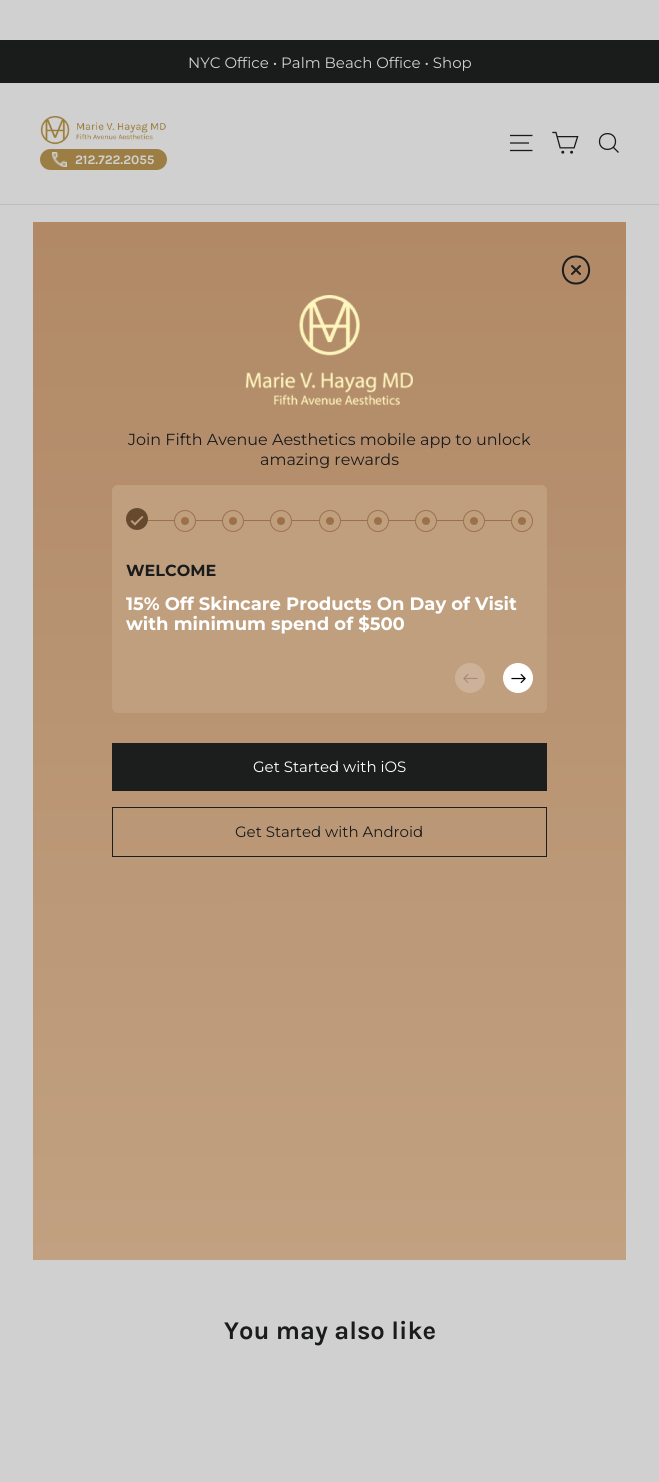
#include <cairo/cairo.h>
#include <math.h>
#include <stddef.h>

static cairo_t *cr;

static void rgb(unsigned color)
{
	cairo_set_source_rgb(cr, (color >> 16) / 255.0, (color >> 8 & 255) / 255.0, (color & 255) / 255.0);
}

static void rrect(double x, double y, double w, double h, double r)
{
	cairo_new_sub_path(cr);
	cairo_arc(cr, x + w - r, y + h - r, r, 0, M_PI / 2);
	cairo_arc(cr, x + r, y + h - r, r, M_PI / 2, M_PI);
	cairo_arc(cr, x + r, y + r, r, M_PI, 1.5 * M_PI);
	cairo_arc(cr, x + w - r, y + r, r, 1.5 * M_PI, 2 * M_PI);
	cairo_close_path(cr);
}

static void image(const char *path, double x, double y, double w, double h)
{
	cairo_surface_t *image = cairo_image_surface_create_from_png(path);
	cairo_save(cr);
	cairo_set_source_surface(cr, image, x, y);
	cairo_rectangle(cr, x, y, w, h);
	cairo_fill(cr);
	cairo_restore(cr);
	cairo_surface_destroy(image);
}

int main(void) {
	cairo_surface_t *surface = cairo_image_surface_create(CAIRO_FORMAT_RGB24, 659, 1482);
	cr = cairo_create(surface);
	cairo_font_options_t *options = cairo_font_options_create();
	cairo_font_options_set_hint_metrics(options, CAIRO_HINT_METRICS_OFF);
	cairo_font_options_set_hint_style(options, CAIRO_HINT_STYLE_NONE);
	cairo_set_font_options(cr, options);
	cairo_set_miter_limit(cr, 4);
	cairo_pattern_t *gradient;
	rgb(0xd0d0d0);
	cairo_paint(cr);
	rgb(0x1a1b1b);
	cairo_rectangle(cr, 0, 40, 659, 43);
	cairo_fill(cr);
	rgb(0xbdbdb8);
	cairo_rectangle(cr, 0, 204, 659, 1);
	cairo_fill(cr);
	cairo_new_path(cr);
	cairo_move_to(cr, 510, 135.5);
	cairo_line_to(cr, 532.5, 135.5);
	cairo_move_to(cr, 510, 143);
	cairo_line_to(cr, 529, 143);
	cairo_move_to(cr, 510, 150.5);
	cairo_line_to(cr, 532.5, 150.5);
	rgb(0x1a1b1b);
	cairo_set_line_width(cr, 1.3);
	cairo_stroke(cr);
	image("img/1.png", 552, 131, 27, 23);
	cairo_new_path(cr);
	cairo_move_to(cr, 615.5, 141.5);
	cairo_curve_to(cr, 615.5, 152, 599.5, 152, 599.5, 141.5);
	cairo_curve_to(cr, 599.5, 131, 615.5, 131, 615.5, 141.5);
	cairo_close_path(cr);
	cairo_move_to(cr, 618.5, 152.5);
	cairo_line_to(cr, 613.5, 147.5);
	cairo_stroke(cr);
	image("img/2.png", 40, 116, 126, 29);
	rgb(0x9c7e44);
	rrect(40, 149, 127, 21, 10.5);
	cairo_fill(cr);
	image("img/3.png", 52, 152, 15, 15);
	gradient = cairo_pattern_create_linear(329, 222, 330, 1260);
	cairo_pattern_add_color_stop_rgba(gradient, 0, 0.694, 0.537, 0.4, 1);
	cairo_pattern_add_color_stop_rgba(gradient, 1, 0.757, 0.631, 0.506, 1);
	cairo_set_source(cr, gradient);
	cairo_pattern_destroy(gradient);
	cairo_rectangle(cr, 33, 222, 593, 1038);
	cairo_fill(cr);
	cairo_new_path(cr);
	cairo_move_to(cr, 576, 283.5);
	cairo_curve_to(cr, 593.5, 283.5, 593.5, 256.5, 576, 256.5);
	cairo_curve_to(cr, 558.5, 256.5, 558.5, 283.5, 576, 283.5);
	cairo_close_path(cr);
	cairo_move_to(cr, 580, 266);
	cairo_line_to(cr, 572, 274);
	cairo_move_to(cr, 572, 266);
	cairo_line_to(cr, 580, 274);
	rgb(0x1c1d1d);
	cairo_set_line_width(cr, 2);
	cairo_set_line_cap(cr, CAIRO_LINE_CAP_ROUND);
	cairo_set_line_join(cr, CAIRO_LINE_JOIN_ROUND);
	cairo_stroke(cr);
	image("img/4.png", 245, 295, 168, 110);
	rgb(0xc09f7f);
	rrect(112, 485, 435, 228, 6);
	cairo_fill(cr);
	rgb(0x9c714a);
	cairo_rectangle(cr, 126, 520, 407, 1);
	cairo_fill(cr);
	rgb(0x664a30);
	cairo_arc(cr, 137, 519, 11, 0, 2 * M_PI);
	cairo_fill(cr);
	rgb(0xbe9d7d);
	cairo_new_path(cr);
	cairo_move_to(cr, 142, 516);
	cairo_line_to(cr, 143.5, 517);
	cairo_line_to(cr, 135, 525.5);
	cairo_line_to(cr, 133.5, 524);
	cairo_close_path(cr);
	cairo_fill(cr);
	cairo_new_path(cr);
	cairo_move_to(cr, 132, 520);
	cairo_line_to(cr, 136, 524);
	cairo_line_to(cr, 135, 525.5);
	cairo_line_to(cr, 130.5, 521.5);
	cairo_close_path(cr);
	cairo_fill(cr);
	rgb(0xc09f7f);
	cairo_arc(cr, 185, 521, 10.5, 0, 2 * M_PI);
	cairo_fill_preserve(cr);
	rgb(0x9c714a);
	cairo_set_line_width(cr, 1);
	cairo_set_line_cap(cr, CAIRO_LINE_CAP_BUTT);
	cairo_set_line_join(cr, CAIRO_LINE_JOIN_MITER);
	cairo_stroke(cr);
	cairo_arc(cr, 185, 521, 4, 0, 2 * M_PI);
	cairo_fill(cr);
	rgb(0xc09f7f);
	cairo_arc(cr, 233, 521, 10.5, 0, 2 * M_PI);
	cairo_fill_preserve(cr);
	rgb(0x9c714a);
	cairo_stroke(cr);
	cairo_arc(cr, 233, 521, 4, 0, 2 * M_PI);
	cairo_fill(cr);
	rgb(0xc09f7f);
	cairo_arc(cr, 281, 521, 10.5, 0, 2 * M_PI);
	cairo_fill_preserve(cr);
	rgb(0x9c714a);
	cairo_stroke(cr);
	cairo_arc(cr, 281, 521, 4, 0, 2 * M_PI);
	cairo_fill(cr);
	rgb(0xc09f7f);
	cairo_arc(cr, 330, 521, 10.5, 0, 2 * M_PI);
	cairo_fill_preserve(cr);
	rgb(0x9c714a);
	cairo_stroke(cr);
	cairo_arc(cr, 330, 521, 4, 0, 2 * M_PI);
	cairo_fill(cr);
	rgb(0xc09f7f);
	cairo_arc(cr, 378, 521, 10.5, 0, 2 * M_PI);
	cairo_fill_preserve(cr);
	rgb(0x9c714a);
	cairo_stroke(cr);
	cairo_arc(cr, 378, 521, 4, 0, 2 * M_PI);
	cairo_fill(cr);
	rgb(0xc09f7f);
	cairo_arc(cr, 426, 521, 10.5, 0, 2 * M_PI);
	cairo_fill_preserve(cr);
	rgb(0x9c714a);
	cairo_stroke(cr);
	cairo_arc(cr, 426, 521, 4, 0, 2 * M_PI);
	cairo_fill(cr);
	rgb(0xc09f7f);
	cairo_arc(cr, 474, 521, 10.5, 0, 2 * M_PI);
	cairo_fill_preserve(cr);
	rgb(0x9c714a);
	cairo_stroke(cr);
	cairo_arc(cr, 474, 521, 4, 0, 2 * M_PI);
	cairo_fill(cr);
	rgb(0xc09f7f);
	cairo_arc(cr, 522, 521, 10.5, 0, 2 * M_PI);
	cairo_fill_preserve(cr);
	rgb(0x9c714a);
	cairo_stroke(cr);
	cairo_arc(cr, 522, 521, 4, 0, 2 * M_PI);
	cairo_fill(cr);
	rgb(0xcdb299);
	cairo_arc(cr, 470, 678, 15, 0, 2 * M_PI);
	cairo_fill(cr);
	image("img/5.png", 463, 674, 15, 9);
	rgb(0xffffff);
	cairo_arc(cr, 518, 678, 15, 0, 2 * M_PI);
	cairo_fill(cr);
	image("img/6.png", 511, 674, 15, 10);
	rgb(0x1c1d1d);
	cairo_rectangle(cr, 112, 743, 435, 48);
	cairo_fill(cr);
	cairo_rectangle(cr, 112.5, 807.5, 434, 49);
	cairo_stroke(cr);
	cairo_select_font_face(cr, "Montserrat Thin", CAIRO_FONT_SLANT_NORMAL, CAIRO_FONT_WEIGHT_NORMAL);
	cairo_set_font_size(cr, 15);
	rgb(0xd0d0d0);
	cairo_move_to(cr, 188, 68);
	cairo_show_text(cr, "NYC Office • Palm Beach Office • Shop");
	cairo_select_font_face(cr, "Karla", CAIRO_FONT_SLANT_NORMAL, CAIRO_FONT_WEIGHT_BOLD);
	cairo_set_font_size(cr, 13);
	cairo_move_to(cr, 75, 164);
	cairo_show_text(cr, "212.722.2055");
	cairo_set_font_size(cr, 25.5);
	rgb(0x1a1b1b);
	cairo_move_to(cr, 224, 1339);
	cairo_show_text(cr, "You may also like");
	cairo_select_font_face(cr, "Montserrat Thin", CAIRO_FONT_SLANT_NORMAL, CAIRO_FONT_WEIGHT_NORMAL);
	cairo_set_font_size(cr, 16);
	cairo_move_to(cr, 128, 445);
	cairo_show_text(cr, "Join Fifth Avenue Aesthetics mobile app to unlock");
	cairo_move_to(cr, 260, 465);
	cairo_show_text(cr, "amazing rewards");
	cairo_select_font_face(cr, "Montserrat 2 Thin", CAIRO_FONT_SLANT_NORMAL, CAIRO_FONT_WEIGHT_NORMAL);
	cairo_move_to(cr, 126, 576);
	cairo_show_text(cr, "WELCOME");
	cairo_set_font_size(cr, 18);
	rgb(0xffffff);
	cairo_move_to(cr, 126, 610);
	cairo_show_text(cr, "15% Off Skincare Products On Day of Visit");
	cairo_move_to(cr, 126, 630);
	cairo_show_text(cr, "with minimum spend of $500");
	cairo_select_font_face(cr, "Montserrat Thin", CAIRO_FONT_SLANT_NORMAL, CAIRO_FONT_WEIGHT_NORMAL);
	cairo_set_font_size(cr, 15);
	cairo_move_to(cr, 253, 772);
	cairo_show_text(cr, "Get Started with iOS");
	rgb(0x1a1b1b);
	cairo_move_to(cr, 235, 837);
	cairo_show_text(cr, "Get Started with Android");
	cairo_surface_write_to_png(surface, "page.png");
	cairo_font_options_destroy(options);
	cairo_destroy(cr);
	cairo_surface_destroy(surface);
	return 0;
}
